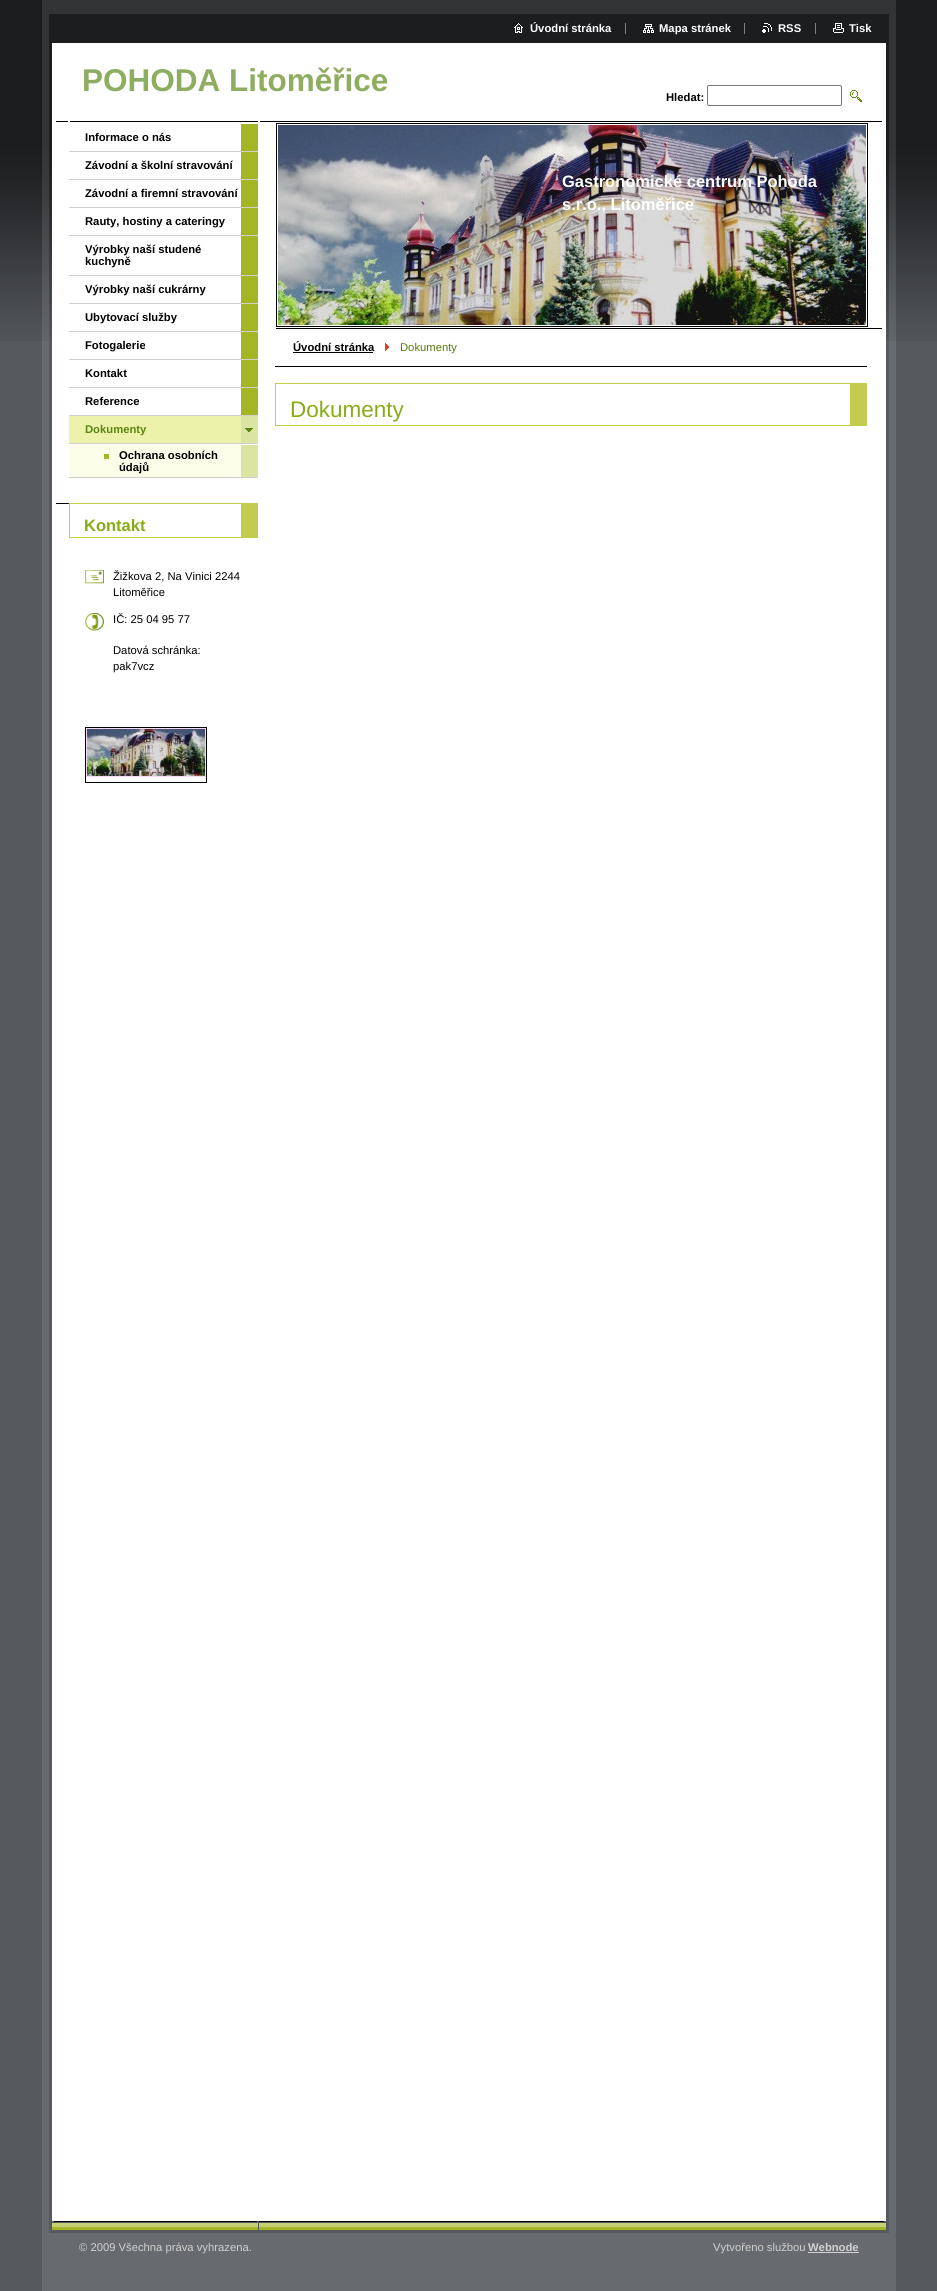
#include <cairo/cairo.h>
#include <math.h>
#include <stddef.h>

typedef struct { double x, y; const char *s; } line_t;
typedef struct { double x, y, w, h; unsigned color; } box_t;
static cairo_t *cr;

static void rgb(unsigned color)
{
	cairo_set_source_rgb(cr, (color >> 16) / 255.0, (color >> 8 & 255) / 255.0, (color & 255) / 255.0);
}

static void rrect(double x, double y, double w, double h, double r)
{
	cairo_new_sub_path(cr);
	cairo_arc(cr, x + w - r, y + h - r, r, 0, M_PI / 2);
	cairo_arc(cr, x + r, y + h - r, r, M_PI / 2, M_PI);
	cairo_arc(cr, x + r, y + r, r, M_PI, 1.5 * M_PI);
	cairo_arc(cr, x + w - r, y + r, r, 1.5 * M_PI, 2 * M_PI);
	cairo_close_path(cr);
}

static void image(const char *path, double x, double y, double w, double h)
{
	cairo_surface_t *image = cairo_image_surface_create_from_png(path);
	cairo_save(cr);
	cairo_set_source_surface(cr, image, x, y);
	cairo_rectangle(cr, x, y, w, h);
	cairo_fill(cr);
	cairo_restore(cr);
	cairo_surface_destroy(image);
}

int main(void) {
	cairo_surface_t *surface = cairo_image_surface_create(CAIRO_FORMAT_RGB24, 937, 2291);
	cr = cairo_create(surface);
	cairo_font_options_t *options = cairo_font_options_create();
	cairo_font_options_set_hint_metrics(options, CAIRO_HINT_METRICS_OFF);
	cairo_font_options_set_hint_style(options, CAIRO_HINT_STYLE_NONE);
	cairo_set_font_options(cr, options);
	cairo_set_miter_limit(cr, 4);
	rgb(0x56595d);
	cairo_paint(cr);
	image("img/1.png", 0, 0, 937, 341);
	rgb(0x676a6e);
	cairo_rectangle(cr, 42, 341, 854, 1950);
	cairo_fill(cr);
	image("img/2.png", 49, 341, 840, 1880);
	image("img/3.png", 42, 0, 854, 341);
	rgb(0xffffff);
	cairo_rectangle(cr, 52, 43, 834, 298);
	cairo_fill(cr);
	image("img/4.png", 514, 23, 9, 10);
	image("img/5.png", 643, 24, 11, 9);
	rgb(0x828282);
	cairo_rectangle(cr, 625, 23, 1, 11);
	cairo_fill(cr);
	image("img/6.png", 762, 23, 10, 10);
	cairo_rectangle(cr, 744, 23, 1, 11);
	cairo_fill(cr);
	image("img/7.png", 833, 23, 11, 10);
	cairo_rectangle(cr, 815, 23, 1, 11);
	cairo_fill(cr);
	rrect(707.5, 85.5, 134, 20, 1.5);
	rgb(0x767676);
	cairo_set_line_width(cr, 1);
	cairo_stroke(cr);
	image("img/8.png", 850, 90, 12, 12);
	image("img/9.png", 56, 121, 202, 1);
	{
		static const box_t items[] = {
			{241, 124, 17, 291, 0xa4b624},
			{69, 151, 189, 1, 0xcfcfcf},
			{69, 179, 189, 1, 0xcfcfcf},
			{69, 207, 189, 1, 0xcfcfcf},
			{69, 235, 189, 1, 0xcfcfcf},
			{69, 275, 189, 1, 0xcfcfcf},
			{69, 303, 189, 1, 0xcfcfcf},
			{69, 331, 189, 1, 0xcfcfcf},
			{69, 359, 189, 1, 0xcfcfcf},
			{69, 387, 189, 1, 0xcfcfcf},
			{69, 415, 189, 1, 0xcfcfcf},
		};
		for (size_t i = 0; i < sizeof items / sizeof *items; i++) {
			rgb(items[i].color);
			cairo_rectangle(cr, items[i].x, items[i].y, items[i].w, items[i].h);
			cairo_fill(cr);
		}
	}
	image("img/10.png", 241, 416, 17, 27);
	{
		static const box_t items[] = {
			{69, 477, 189, 1, 0xcfcfcf},
			{69, 416, 172, 27, 0xedf2aa},
			{69, 445, 172, 32, 0xfcfde8},
			{241, 445, 17, 32, 0xdbe4a0},
			{69, 443, 189, 1, 0xcfcfcf},
			{104, 454, 5, 5, 0xa4b624},
		};
		for (size_t i = 0; i < sizeof items / sizeof *items; i++) {
			rgb(items[i].color);
			cairo_rectangle(cr, items[i].x, items[i].y, items[i].w, items[i].h);
			cairo_fill(cr);
		}
	}
	image("img/11.png", 56, 503, 13, 1);
	{
		static const box_t items[] = {
			{69, 503, 172, 1, 0xc3cc4e},
			{241, 503, 17, 34, 0xc3cc4e},
			{69, 537, 189, 1, 0xc3cc4e},
			{69, 503, 1, 35, 0xc3cc4e},
		};
		for (size_t i = 0; i < sizeof items / sizeof *items; i++) {
			rgb(items[i].color);
			cairo_rectangle(cr, items[i].x, items[i].y, items[i].w, items[i].h);
			cairo_fill(cr);
		}
	}
	image("img/12.png", 85, 570, 19, 14);
	image("img/13.png", 85, 613, 19, 18);
	cairo_rectangle(cr, 85.5, 727.5, 121, 55);
	rgb(0x000000);
	cairo_stroke(cr);
	cairo_rectangle(cr, 86.5, 728.5, 119, 48);
	rgb(0xf4d8f7);
	cairo_stroke(cr);
	image("img/14.png", 87, 729, 118, 47);
	rgb(0x000000);
	cairo_rectangle(cr, 260, 121, 622, 1);
	cairo_fill(cr);
	cairo_rectangle(cr, 276, 328, 606, 1);
	cairo_fill(cr);
	cairo_rectangle(cr, 276.5, 123.5, 591, 203);
	cairo_stroke(cr);
	image("img/15.png", 278, 125, 588, 200);
	cairo_rectangle(cr, 275, 366, 592, 1);
	cairo_fill(cr);
	cairo_rectangle(cr, 293, 352, 80, 1);
	cairo_fill(cr);
	image("img/16.png", 385, 343, 4, 8);
	{
		static const box_t items[] = {
			{275, 383, 575, 1, 0xc3cc4e},
			{850, 383, 17, 42, 0xc3cc4e},
			{275, 425, 592, 1, 0xc3cc4e},
			{275, 383, 1, 43, 0xc3cc4e},
		};
		for (size_t i = 0; i < sizeof items / sizeof *items; i++) {
			rgb(items[i].color);
			cairo_rectangle(cr, items[i].x, items[i].y, items[i].w, items[i].h);
			cairo_fill(cr);
		}
	}
	image("img/17.png", 49, 2221, 840, 12);
	rgb(0xd1d1d1);
	cairo_rectangle(cr, 808, 2252, 51, 1);
	cairo_fill(cr);
	cairo_select_font_face(cr, "Liberation Sans", CAIRO_FONT_SLANT_NORMAL, CAIRO_FONT_WEIGHT_BOLD);
	cairo_set_font_size(cr, 11.25);
	rgb(0xffffff);
	{
		static const line_t items[] = {
			{530, 32, "Úvodní stránka"},
			{659, 32, "Mapa stránek"},
			{778, 32, "RSS"},
			{849, 32, "Tisk"},
		};
		for (size_t i = 0; i < sizeof items / sizeof *items; i++) {
			cairo_move_to(cr, items[i].x, items[i].y);
			cairo_show_text(cr, items[i].s);
		}
	}
	cairo_set_font_size(cr, 31.5);
	rgb(0x8ead60);
	cairo_move_to(cr, 82, 91);
	cairo_show_text(cr, "POHODA Litoměřice");
	cairo_set_font_size(cr, 11.25);
	rgb(0x000000);
	{
		static const line_t items[] = {
			{666, 101, "Hledat:"},
			{85, 141, "Informace o nás"},
			{85, 169, "Závodní a školní stravování"},
			{85, 197, "Závodní a firemní stravování"},
			{85, 225, "Rauty, hostiny a cateringy"},
			{85, 253, "Výrobky naší studené"},
			{85, 265, "kuchyně"},
			{85, 293, "Výrobky naší cukrárny"},
			{85, 321, "Ubytovací služby"},
			{85, 349, "Fotogalerie"},
			{85, 377, "Kontakt"},
			{85, 405, "Reference"},
		};
		for (size_t i = 0; i < sizeof items / sizeof *items; i++) {
			cairo_move_to(cr, items[i].x, items[i].y);
			cairo_show_text(cr, items[i].s);
		}
	}
	rgb(0x5d8511);
	cairo_move_to(cr, 85, 433);
	cairo_show_text(cr, "Dokumenty");
	rgb(0x000000);
	cairo_move_to(cr, 119, 459);
	cairo_show_text(cr, "Ochrana osobních");
	cairo_move_to(cr, 119, 471);
	cairo_show_text(cr, "údajů");
	cairo_set_font_size(cr, 16.5);
	rgb(0x86ad17);
	cairo_move_to(cr, 84, 531);
	cairo_show_text(cr, "Kontakt");
	cairo_select_font_face(cr, "Liberation Sans", CAIRO_FONT_SLANT_NORMAL, CAIRO_FONT_WEIGHT_NORMAL);
	cairo_set_font_size(cr, 11.25);
	rgb(0x000000);
	{
		static const line_t items[] = {
			{113, 580, "Žižkova 2, Na Vinici 2244"},
			{113, 596, "Litoměřice"},
			{113, 623, "IČ: 25 04 95 77"},
			{113, 654, "Datová schránka:"},
			{113, 670, "pak7vcz"},
		};
		for (size_t i = 0; i < sizeof items / sizeof *items; i++) {
			cairo_move_to(cr, items[i].x, items[i].y);
			cairo_show_text(cr, items[i].s);
		}
	}
	cairo_select_font_face(cr, "Liberation Sans", CAIRO_FONT_SLANT_NORMAL, CAIRO_FONT_WEIGHT_BOLD);
	cairo_set_font_size(cr, 16.5);
	rgb(0xffffff);
	cairo_move_to(cr, 562, 187);
	cairo_show_text(cr, "Gastronomické centrum Pohoda");
	cairo_move_to(cr, 562, 210);
	cairo_show_text(cr, "s.r.o., Litoměřice");
	cairo_set_font_size(cr, 11.25);
	rgb(0x000000);
	cairo_move_to(cr, 293, 351);
	cairo_show_text(cr, "Úvodní stránka");
	cairo_select_font_face(cr, "Liberation Sans", CAIRO_FONT_SLANT_NORMAL, CAIRO_FONT_WEIGHT_NORMAL);
	rgb(0x567a0e);
	cairo_move_to(cr, 400, 351);
	cairo_show_text(cr, "Dokumenty");
	cairo_set_font_size(cr, 22.5);
	rgb(0x86ad17);
	cairo_move_to(cr, 290, 417);
	cairo_show_text(cr, "Dokumenty");
	cairo_save(cr);
	cairo_rectangle(cr, 79, 2241, 480, 14);
	cairo_clip(cr);
	cairo_set_font_size(cr, 11.25);
	rgb(0xd1d1d1);
	cairo_move_to(cr, 79, 2251);
	cairo_show_text(cr, "© 2009 Všechna práva vyhrazena.");
	cairo_restore(cr);
	cairo_set_font_size(cr, 11.25);
	rgb(0xd1d1d1);
	cairo_move_to(cr, 713, 2251);
	cairo_show_text(cr, "Vytvořeno službou");
	cairo_select_font_face(cr, "Liberation Sans", CAIRO_FONT_SLANT_NORMAL, CAIRO_FONT_WEIGHT_BOLD);
	cairo_move_to(cr, 808, 2251);
	cairo_show_text(cr, "Webnode");
	cairo_surface_write_to_png(surface, "page.png");
	cairo_font_options_destroy(options);
	cairo_destroy(cr);
	cairo_surface_destroy(surface);
	return 0;
}
